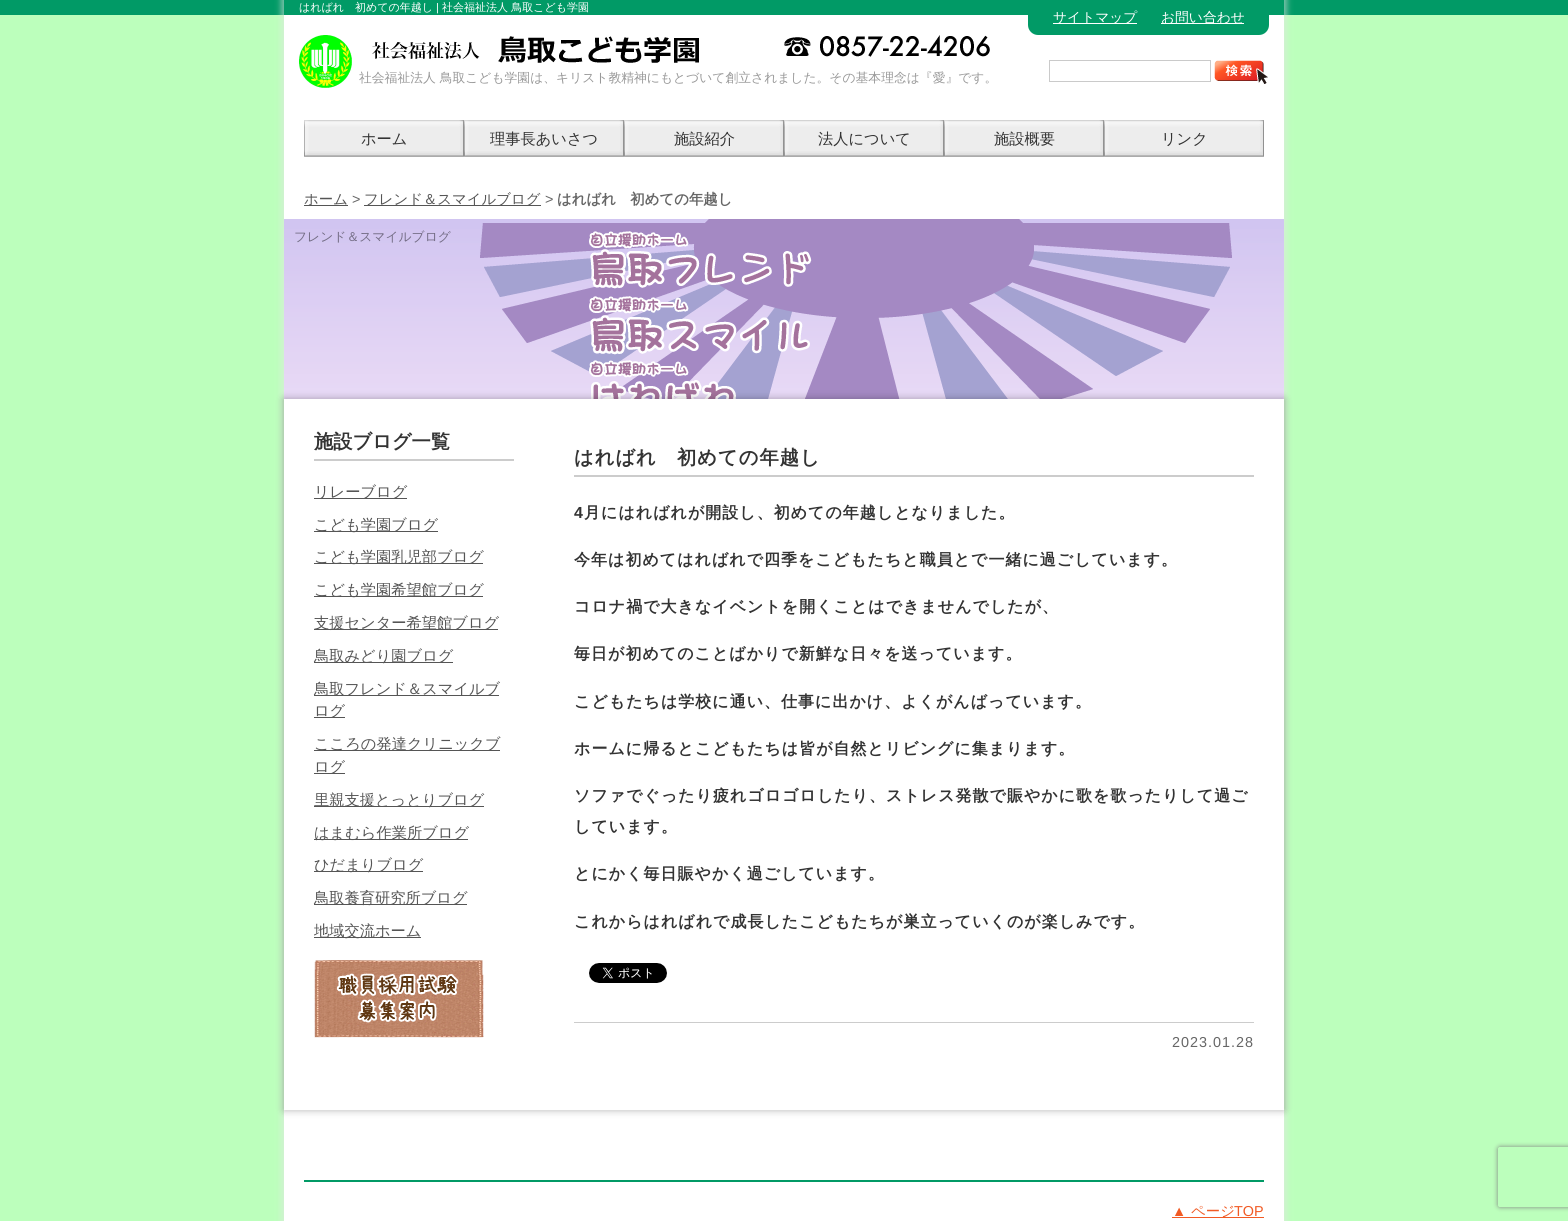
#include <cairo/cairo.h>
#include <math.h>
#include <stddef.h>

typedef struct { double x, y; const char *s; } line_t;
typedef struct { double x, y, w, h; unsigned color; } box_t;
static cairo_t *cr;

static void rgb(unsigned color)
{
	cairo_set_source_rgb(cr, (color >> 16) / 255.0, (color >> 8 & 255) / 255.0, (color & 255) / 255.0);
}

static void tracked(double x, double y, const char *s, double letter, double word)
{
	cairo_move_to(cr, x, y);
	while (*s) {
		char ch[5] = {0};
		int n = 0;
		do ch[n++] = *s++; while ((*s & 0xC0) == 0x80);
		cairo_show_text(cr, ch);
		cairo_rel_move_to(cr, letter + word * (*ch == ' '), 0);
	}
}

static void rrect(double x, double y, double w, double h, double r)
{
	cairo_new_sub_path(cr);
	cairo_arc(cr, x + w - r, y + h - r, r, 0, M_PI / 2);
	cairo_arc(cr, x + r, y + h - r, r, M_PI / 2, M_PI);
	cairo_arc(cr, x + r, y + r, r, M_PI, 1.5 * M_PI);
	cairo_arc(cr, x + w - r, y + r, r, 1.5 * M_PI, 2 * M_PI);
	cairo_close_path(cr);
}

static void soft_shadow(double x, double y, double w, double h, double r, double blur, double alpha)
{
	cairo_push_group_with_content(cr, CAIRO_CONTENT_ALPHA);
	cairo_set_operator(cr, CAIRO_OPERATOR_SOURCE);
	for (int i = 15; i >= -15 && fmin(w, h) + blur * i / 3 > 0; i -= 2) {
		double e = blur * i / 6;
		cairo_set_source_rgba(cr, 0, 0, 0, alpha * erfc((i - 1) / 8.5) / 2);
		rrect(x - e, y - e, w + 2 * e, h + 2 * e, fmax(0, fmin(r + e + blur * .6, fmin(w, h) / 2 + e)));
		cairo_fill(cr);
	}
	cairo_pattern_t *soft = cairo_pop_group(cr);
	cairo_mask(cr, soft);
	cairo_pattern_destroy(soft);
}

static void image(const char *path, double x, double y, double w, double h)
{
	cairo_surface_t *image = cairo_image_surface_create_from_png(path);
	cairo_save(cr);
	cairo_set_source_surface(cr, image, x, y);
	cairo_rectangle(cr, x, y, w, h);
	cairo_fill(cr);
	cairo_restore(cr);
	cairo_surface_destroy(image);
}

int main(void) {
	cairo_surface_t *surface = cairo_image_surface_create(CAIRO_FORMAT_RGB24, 1568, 1221);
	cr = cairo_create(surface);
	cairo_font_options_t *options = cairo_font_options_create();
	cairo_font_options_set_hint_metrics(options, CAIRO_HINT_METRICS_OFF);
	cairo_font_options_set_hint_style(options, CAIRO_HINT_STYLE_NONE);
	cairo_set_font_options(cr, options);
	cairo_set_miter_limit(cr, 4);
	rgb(0xbcffbc);
	cairo_paint(cr);
	rgb(0x019a66);
	cairo_rectangle(cr, 0, 0, 1568, 15);
	cairo_fill(cr);
	rgb(0xe6e6e6);
	soft_shadow(281, -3, 1006, 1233, 0, 3, 0.55);
	rgb(0xffffff);
	cairo_rectangle(cr, 284, 15, 1000, 1206);
	cairo_fill(cr);
	rgb(0x019a66);
	cairo_rectangle(cr, 284, 0, 1000, 15);
	cairo_fill(cr);
	cairo_new_path(cr);
	cairo_move_to(cr, 1028, 0);
	cairo_line_to(cr, 1269, 0);
	cairo_line_to(cr, 1269, 25);
	cairo_curve_to(cr, 1269, 30.5, 1264.5, 35, 1259, 35);
	cairo_line_to(cr, 1038, 35);
	cairo_curve_to(cr, 1032.5, 35, 1028, 30.5, 1028, 25);
	cairo_close_path(cr);
	cairo_fill(cr);
	rgb(0xffffff);
	cairo_rectangle(cr, 1053, 23, 84, 1);
	cairo_fill(cr);
	cairo_rectangle(cr, 1161, 23, 83, 1);
	cairo_fill(cr);
	image("img/1.png", 299, 35, 400, 53);
	image("img/2.png", 784, 35, 206, 22);
	cairo_rectangle(cr, 1049.5, 60.5, 161, 21);
	rgb(0xcacaca);
	cairo_set_line_width(cr, 1);
	cairo_stroke(cr);
	image("img/3.png", 1214, 60, 54, 24);
	image("img/4.png", 304, 120, 160, 37);
	image("img/4.png", 464, 120, 160, 37);
	image("img/4.png", 624, 120, 160, 37);
	image("img/4.png", 784, 120, 160, 37);
	image("img/4.png", 944, 120, 160, 37);
	image("img/4.png", 1104, 120, 160, 37);
	rgb(0x555555);
	cairo_rectangle(cr, 304, 205, 44, 1);
	cairo_fill(cr);
	cairo_rectangle(cr, 364, 205, 177, 1);
	cairo_fill(cr);
	image("img/5.png", 284, 219, 1000, 180);
	rgb(0x000000);
	soft_shadow(284, 399, 1000, 711, 0, 4, 0.3);
	{
		static const box_t items[] = {
			{284, 399, 1000, 711, 0xffffff},
			{314, 459, 200, 2, 0xcccccc},
			{314, 498, 93, 1, 0x555555},
			{314, 531, 124, 1, 0x555555},
			{314, 563, 169, 1, 0x555555},
			{314, 596, 169, 1, 0x555555},
			{314, 629, 184, 1, 0x555555},
			{314, 662, 139, 1, 0x555555},
			{314, 695, 185, 1, 0x555555},
			{314, 717, 31, 1, 0x555555},
			{314, 750, 186, 1, 0x555555},
			{314, 773, 31, 1, 0x555555},
			{314, 806, 170, 1, 0x555555},
			{314, 839, 154, 1, 0x555555},
			{314, 871, 109, 1, 0x555555},
			{314, 904, 153, 1, 0x555555},
			{314, 937, 107, 1, 0x555555},
		};
		for (size_t i = 0; i < sizeof items / sizeof *items; i++) {
			rgb(items[i].color);
			cairo_rectangle(cr, items[i].x, items[i].y, items[i].w, items[i].h);
			cairo_fill(cr);
		}
	}
	image("img/6.png", 314, 960, 170, 78);
	rgb(0xcccccc);
	cairo_rectangle(cr, 574, 475, 680, 2);
	cairo_fill(cr);
	image("img/7.png", 589, 963, 78, 20);
	{
		static const box_t items[] = {
			{574, 1022, 680, 1, 0xcccccc},
			{304, 1180, 960, 2, 0x019a66},
			{1172, 1217, 92, 1, 0xf15a24},
		};
		for (size_t i = 0; i < sizeof items / sizeof *items; i++) {
			rgb(items[i].color);
			cairo_rectangle(cr, items[i].x, items[i].y, items[i].w, items[i].h);
			cairo_fill(cr);
		}
	}
	cairo_save(cr);
	cairo_set_fill_rule(cr, CAIRO_FILL_RULE_EVEN_ODD);
	cairo_new_path(cr);
	cairo_move_to(cr, 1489, 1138);
	cairo_line_to(cr, 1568, 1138);
	cairo_line_to(cr, 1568, 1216);
	cairo_line_to(cr, 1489, 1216);
	cairo_close_path(cr);
	cairo_move_to(cr, 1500, 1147);
	cairo_line_to(cr, 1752, 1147);
	cairo_curve_to(cr, 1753, 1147, 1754, 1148, 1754, 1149);
	cairo_line_to(cr, 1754, 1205);
	cairo_curve_to(cr, 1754, 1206, 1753, 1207, 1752, 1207);
	cairo_line_to(cr, 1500, 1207);
	cairo_curve_to(cr, 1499, 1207, 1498, 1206, 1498, 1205);
	cairo_line_to(cr, 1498, 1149);
	cairo_curve_to(cr, 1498, 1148, 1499, 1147, 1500, 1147);
	cairo_close_path(cr);
	cairo_clip(cr);
	rgb(0x808080);
	soft_shadow(1498, 1147, 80, 60, 2, 2.5, 1);
	cairo_restore(cr);
	cairo_select_font_face(cr, "WenQuanYi Zen Hei Medium", CAIRO_FONT_SLANT_NORMAL, CAIRO_FONT_WEIGHT_NORMAL);
	cairo_set_font_size(cr, 11);
	rgb(0xffffff);
	cairo_move_to(cr, 299, 11);
	cairo_show_text(cr, "はればれ　初めての年越し");
	cairo_select_font_face(cr, "Liberation Sans", CAIRO_FONT_SLANT_NORMAL, CAIRO_FONT_WEIGHT_NORMAL);
	cairo_move_to(cr, 436, 11);
	cairo_show_text(cr, "|");
	cairo_select_font_face(cr, "WenQuanYi Zen Hei Medium", CAIRO_FONT_SLANT_NORMAL, CAIRO_FONT_WEIGHT_NORMAL);
	cairo_move_to(cr, 442, 11);
	cairo_show_text(cr, "社会福祉法人 鳥取こども学園");
	cairo_set_font_size(cr, 13.75);
	cairo_move_to(cr, 1053, 22);
	cairo_show_text(cr, "サイトマップ");
	cairo_move_to(cr, 1161, 22);
	cairo_show_text(cr, "お問い合わせ");
	cairo_set_font_size(cr, 12.8);
	rgb(0x999999);
	cairo_move_to(cr, 359, 82);
	cairo_show_text(cr, "社会福祉法人 鳥取こども学園は、キリスト教精神にもとづいて創立されました。その基本理念は『愛』です。");
	cairo_set_font_size(cr, 15.25);
	rgb(0x333333);
	{
		static const line_t items[] = {
			{361, 144, "ホーム"},
			{490, 144, "理事長あいさつ"},
			{674, 144, "施設紹介"},
			{818, 144, "法人について"},
			{994, 144, "施設概要"},
			{1161, 144, "リンク"},
		};
		for (size_t i = 0; i < sizeof items / sizeof *items; i++) {
			cairo_move_to(cr, items[i].x, items[i].y);
			cairo_show_text(cr, items[i].s);
		}
	}
	cairo_set_font_size(cr, 14.4);
	rgb(0x555555);
	cairo_move_to(cr, 304, 204);
	cairo_show_text(cr, "ホーム");
	cairo_select_font_face(cr, "Liberation Sans", CAIRO_FONT_SLANT_NORMAL, CAIRO_FONT_WEIGHT_NORMAL);
	rgb(0x666666);
	cairo_move_to(cr, 352, 204);
	cairo_show_text(cr, ">");
	cairo_select_font_face(cr, "WenQuanYi Zen Hei Medium", CAIRO_FONT_SLANT_NORMAL, CAIRO_FONT_WEIGHT_NORMAL);
	rgb(0x555555);
	cairo_move_to(cr, 364, 204);
	cairo_show_text(cr, "フレンド＆スマイルブログ");
	cairo_select_font_face(cr, "Liberation Sans", CAIRO_FONT_SLANT_NORMAL, CAIRO_FONT_WEIGHT_NORMAL);
	rgb(0x666666);
	cairo_move_to(cr, 545, 204);
	cairo_show_text(cr, ">");
	cairo_select_font_face(cr, "WenQuanYi Zen Hei", CAIRO_FONT_SLANT_NORMAL, CAIRO_FONT_WEIGHT_BOLD);
	cairo_move_to(cr, 557, 204);
	cairo_show_text(cr, "はればれ　初めての年越し");
	cairo_select_font_face(cr, "WenQuanYi Zen Hei Medium", CAIRO_FONT_SLANT_NORMAL, CAIRO_FONT_WEIGHT_NORMAL);
	cairo_set_font_size(cr, 12.8);
	rgb(0x746d85);
	cairo_move_to(cr, 294, 241);
	cairo_show_text(cr, "フレンド＆スマイルブログ");
	cairo_select_font_face(cr, "WenQuanYi Zen Hei", CAIRO_FONT_SLANT_NORMAL, CAIRO_FONT_WEIGHT_BOLD);
	cairo_set_font_size(cr, 19.25);
	rgb(0x333333);
	cairo_move_to(cr, 314, 448);
	cairo_show_text(cr, "施設ブログ一覧");
	cairo_select_font_face(cr, "WenQuanYi Zen Hei Medium", CAIRO_FONT_SLANT_NORMAL, CAIRO_FONT_WEIGHT_NORMAL);
	cairo_set_font_size(cr, 15.25);
	rgb(0x555555);
	{
		static const line_t items[] = {
			{314, 497, "リレーブログ"},
			{314, 530, "こども学園ブログ"},
			{314, 562, "こども学園乳児部ブログ"},
			{314, 595, "こども学園希望館ブログ"},
			{314, 628, "支援センター希望館ブログ"},
			{314, 661, "鳥取みどり園ブログ"},
			{314, 694, "鳥取フレンド＆スマイルブ"},
			{314, 716, "ログ"},
			{314, 749, "こころの発達クリニックブ"},
			{314, 772, "ログ"},
			{314, 805, "里親支援とっとりブログ"},
			{314, 838, "はまむら作業所ブログ"},
			{314, 870, "ひだまりブログ"},
			{314, 903, "鳥取養育研究所ブログ"},
			{314, 936, "地域交流ホーム"},
		};
		for (size_t i = 0; i < sizeof items / sizeof *items; i++) {
			cairo_move_to(cr, items[i].x, items[i].y);
			cairo_show_text(cr, items[i].s);
		}
	}
	cairo_select_font_face(cr, "WenQuanYi Zen Hei", CAIRO_FONT_SLANT_NORMAL, CAIRO_FONT_WEIGHT_BOLD);
	cairo_set_font_size(cr, 19.25);
	rgb(0x333333);
	tracked(574, 464, "はればれ　初めての年越し", 1, 0);
	cairo_select_font_face(cr, "Liberation Sans", CAIRO_FONT_SLANT_NORMAL, CAIRO_FONT_WEIGHT_BOLD);
	cairo_set_font_size(cr, 16);
	tracked(574, 518, "4", 1, 0);
	cairo_select_font_face(cr, "WenQuanYi Zen Hei", CAIRO_FONT_SLANT_NORMAL, CAIRO_FONT_WEIGHT_BOLD);
	{
		static const line_t items[] = {
			{584, 518, "月にはればれが開設し、初めての年越しとなりました。"},
			{574, 565, "今年は初めてはればれで四季をこどもたちと職員とで一緒に過ごしています。"},
			{574, 612, "コロナ禍で大きなイベントを開くことはできませんでしたが、"},
			{574, 659, "毎日が初めてのことばかりで新鮮な日々を送っています。"},
			{574, 707, "こどもたちは学校に通い、仕事に出かけ、よくがんばっています。"},
			{574, 754, "ホームに帰るとこどもたちは皆が自然とリビングに集まります。"},
			{574, 801, "ソファでぐったり疲れゴロゴロしたり、ストレス発散で賑やかに歌を歌ったりして過ご"},
			{574, 832, "しています。"},
			{574, 879, "とにかく毎日賑やかく過ごしています。"},
			{574, 927, "これからはればれで成長したこどもたちが巣立っていくのが楽しみです。"},
		};
		for (size_t i = 0; i < sizeof items / sizeof *items; i++) {
			tracked(items[i].x, items[i].y, items[i].s, 1, 0);
		}
	}
	cairo_select_font_face(cr, "Liberation Sans", CAIRO_FONT_SLANT_NORMAL, CAIRO_FONT_WEIGHT_NORMAL);
	cairo_set_font_size(cr, 14.4);
	rgb(0x666666);
	tracked(1172, 1047, "2023.01.28", 1, 0);
	rgb(0xf15a24);
	cairo_move_to(cr, 1172, 1216);
	cairo_show_text(cr, "▲");
	cairo_select_font_face(cr, "WenQuanYi Zen Hei Medium", CAIRO_FONT_SLANT_NORMAL, CAIRO_FONT_WEIGHT_NORMAL);
	cairo_move_to(cr, 1191, 1216);
	cairo_show_text(cr, "ページ");
	cairo_select_font_face(cr, "Liberation Sans", CAIRO_FONT_SLANT_NORMAL, CAIRO_FONT_WEIGHT_NORMAL);
	cairo_move_to(cr, 1234, 1216);
	cairo_show_text(cr, "TOP");
	cairo_surface_write_to_png(surface, "page.png");
	cairo_font_options_destroy(options);
	cairo_destroy(cr);
	cairo_surface_destroy(surface);
	return 0;
}
